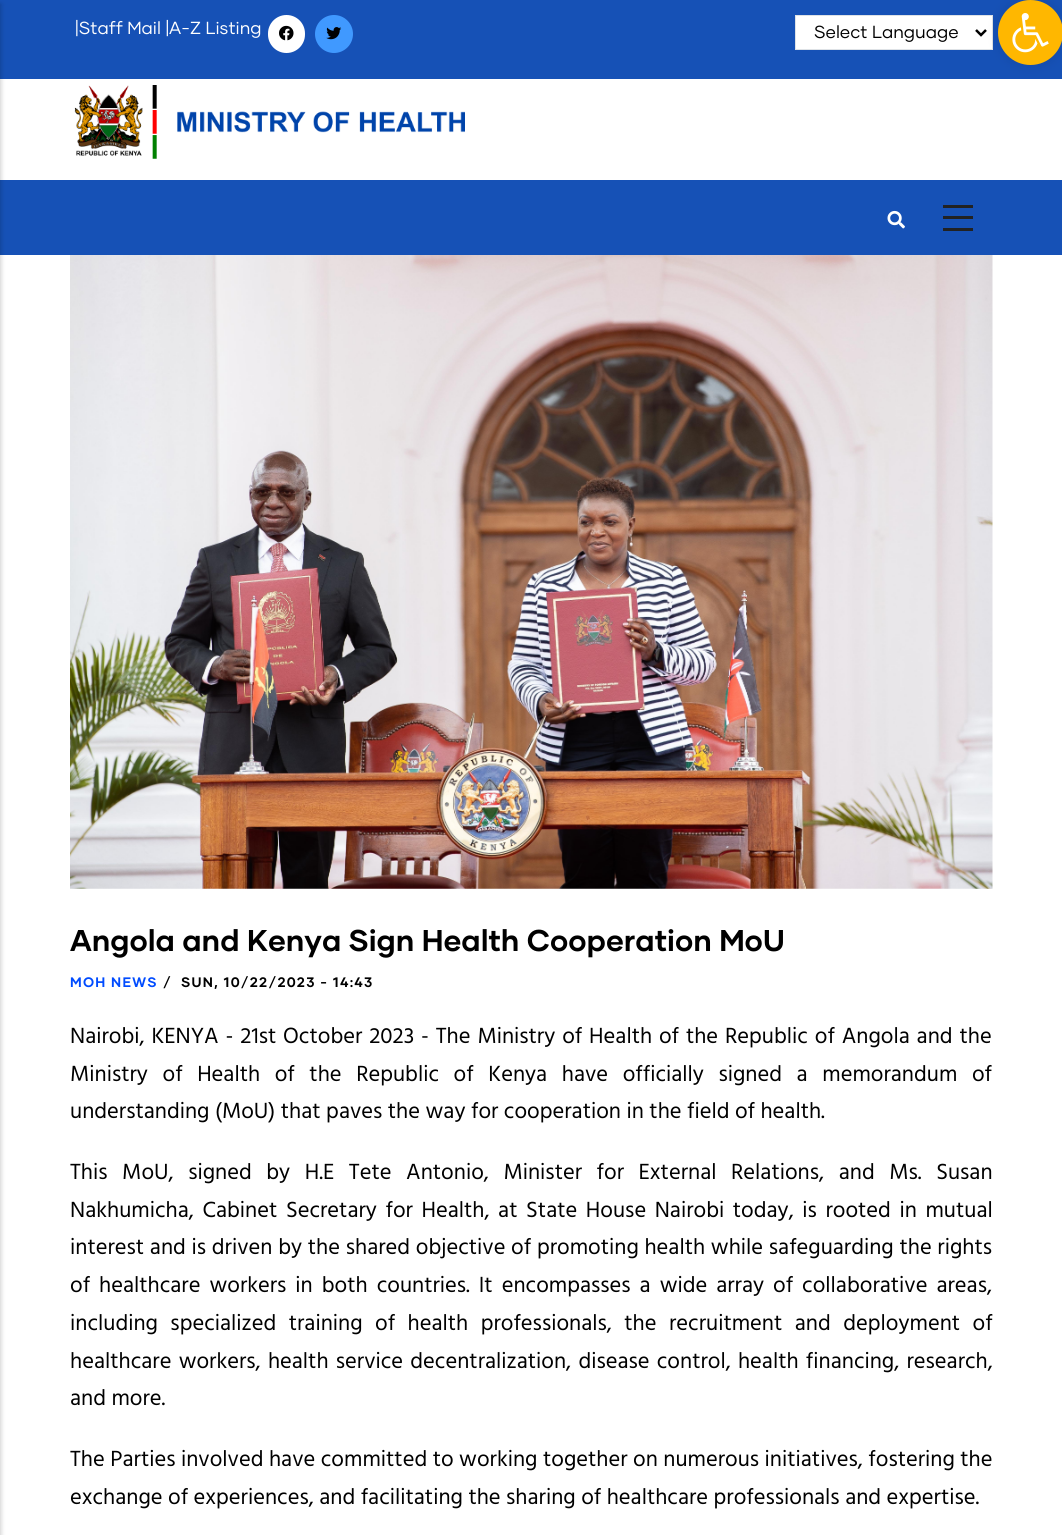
#include <cairo/cairo.h>
#include <math.h>
#include <stddef.h>

typedef struct { double x, y; const char *s; } line_t;
typedef struct { double x, y, w, h; unsigned color; } box_t;
static cairo_t *cr;

static void rgb(unsigned color)
{
	cairo_set_source_rgb(cr, (color >> 16) / 255.0, (color >> 8 & 255) / 255.0, (color & 255) / 255.0);
}

static void tracked(double x, double y, const char *s, double letter, double word)
{
	cairo_move_to(cr, x, y);
	while (*s) {
		char ch[5] = {0};
		int n = 0;
		do ch[n++] = *s++; while ((*s & 0xC0) == 0x80);
		cairo_show_text(cr, ch);
		cairo_rel_move_to(cr, letter + word * (*ch == ' '), 0);
	}
}

static void rrect(double x, double y, double w, double h, double r)
{
	cairo_new_sub_path(cr);
	cairo_arc(cr, x + w - r, y + h - r, r, 0, M_PI / 2);
	cairo_arc(cr, x + r, y + h - r, r, M_PI / 2, M_PI);
	cairo_arc(cr, x + r, y + r, r, M_PI, 1.5 * M_PI);
	cairo_arc(cr, x + w - r, y + r, r, 1.5 * M_PI, 2 * M_PI);
	cairo_close_path(cr);
}

static void soft_shadow(double x, double y, double w, double h, double r, double blur, double alpha)
{
	cairo_push_group_with_content(cr, CAIRO_CONTENT_ALPHA);
	cairo_set_operator(cr, CAIRO_OPERATOR_SOURCE);
	for (int i = 15; i >= -15 && fmin(w, h) + blur * i / 3 > 0; i -= 2) {
		double e = blur * i / 6;
		cairo_set_source_rgba(cr, 0, 0, 0, alpha * erfc((i - 1) / 8.5) / 2);
		rrect(x - e, y - e, w + 2 * e, h + 2 * e, fmax(0, fmin(r + e + blur * .6, fmin(w, h) / 2 + e)));
		cairo_fill(cr);
	}
	cairo_pattern_t *soft = cairo_pop_group(cr);
	cairo_mask(cr, soft);
	cairo_pattern_destroy(soft);
}

static void image(const char *path, double x, double y, double w, double h)
{
	cairo_surface_t *image = cairo_image_surface_create_from_png(path);
	cairo_save(cr);
	cairo_set_source_surface(cr, image, x, y);
	cairo_rectangle(cr, x, y, w, h);
	cairo_fill(cr);
	cairo_restore(cr);
	cairo_surface_destroy(image);
}

int main(void) {
	cairo_surface_t *surface = cairo_image_surface_create(CAIRO_FORMAT_RGB24, 1062, 1535);
	cr = cairo_create(surface);
	cairo_font_options_t *options = cairo_font_options_create();
	cairo_font_options_set_hint_metrics(options, CAIRO_HINT_METRICS_OFF);
	cairo_font_options_set_hint_style(options, CAIRO_HINT_STYLE_NONE);
	cairo_set_font_options(cr, options);
	cairo_set_miter_limit(cr, 4);
	rgb(0xffffff);
	cairo_paint(cr);
	rgb(0x1651b6);
	cairo_rectangle(cr, 0, 180, 1062, 75);
	cairo_fill(cr);
	cairo_rectangle(cr, 0, 0, 1062, 79);
	cairo_fill(cr);
	rgb(0x000000);
	soft_shadow(-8, 4, 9, 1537, 0, 2.5, 0.2);
	image("img/1.png", 887, 210, 18, 19);
	{
		static const box_t items[] = {
			{943, 205, 30, 3, 0x222222},
			{943, 216, 30, 3, 0x222222},
			{943, 228, 30, 3, 0x222222},
		};
		for (size_t i = 0; i < sizeof items / sizeof *items; i++) {
			rgb(items[i].color);
			cairo_rectangle(cr, items[i].x, items[i].y, items[i].w, items[i].h);
			cairo_fill(cr);
		}
	}
	rgb(0xffffff);
	rrect(268, 15, 37, 38, 18.5);
	cairo_fill(cr);
	image("img/2.png", 279, 25, 15, 16);
	rgb(0x4099ff);
	cairo_arc(cr, 334, 34, 19, 0, 2 * M_PI);
	cairo_fill(cr);
	image("img/3.png", 326, 27, 16, 13);
	rgb(0xffffff);
	cairo_rectangle(cr, 795.5, 15.5, 197, 34);
	cairo_fill_preserve(cr);
	rgb(0xdee2e6);
	cairo_set_line_width(cr, 1);
	cairo_stroke(cr);
	cairo_new_path(cr);
	cairo_move_to(cr, 976, 30);
	cairo_line_to(cr, 981, 35);
	cairo_line_to(cr, 986, 30);
	rgb(0x000000);
	cairo_set_line_width(cr, 2.5);
	cairo_stroke(cr);
	image("img/4.png", 74, 85, 391, 74);
	image("img/5.png", 70, 255, 923, 634);
	rgb(0x000000);
	soft_shadow(998, 0, 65, 65, 32.5, 6, 0.1);
	rgb(0xffb700);
	cairo_arc(cr, 1030.5, 32.5, 32.5, 0, 2 * M_PI);
	cairo_fill(cr);
	image("img/6.png", 1012, 13, 37, 40);
	cairo_select_font_face(cr, "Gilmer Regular", CAIRO_FONT_SLANT_NORMAL, CAIRO_FONT_WEIGHT_NORMAL);
	cairo_set_font_size(cr, 17.5);
	rgb(0xffffff);
	cairo_move_to(cr, 75, 34);
	cairo_show_text(cr, "|Staff Mail |A-Z Listing");
	rgb(0x000000);
	cairo_move_to(cr, 814, 38);
	cairo_show_text(cr, "Select Language");
	cairo_select_font_face(cr, "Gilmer", CAIRO_FONT_SLANT_NORMAL, CAIRO_FONT_WEIGHT_BOLD);
	cairo_set_font_size(cr, 30);
	cairo_move_to(cr, 70, 951);
	cairo_show_text(cr, "Angola and Kenya Sign Health Cooperation MoU");
	cairo_set_font_size(cr, 13.75);
	rgb(0x004bff);
	tracked(70, 987, "MOH NEWS", 1.25, 0);
	rgb(0x000000);
	tracked(163, 987, "/", 1.25, 0);
	tracked(181, 987, "SUN, 10/22/2023 - 14:43", 1.25, 0);
	cairo_select_font_face(cr, "Hind", CAIRO_FONT_SLANT_NORMAL, CAIRO_FONT_WEIGHT_NORMAL);
	cairo_set_font_size(cr, 22.5);
	tracked(70, 1043, "Nairobi, KENYA - 21st October 2023 - The Ministry of Health of the Republic of Angola and the", 0, 1.4);
	tracked(70, 1081, "Ministry of Health of the Republic of Kenya have officially signed a memorandum of", 0, 9.1);
	cairo_move_to(cr, 70, 1118);
	cairo_show_text(cr, "understanding (MoU) that paves the way for cooperation in the field of health.");
	tracked(70, 1179, "This MoU, signed by H.E Tete Antonio, Minister for External Relations, and Ms. Susan", 0, 9.1);
	tracked(70, 1217, "Nakhumicha, Cabinet Secretary for Health, at State House Nairobi today, is rooted in mutual", 0, 3.1);
	tracked(70, 1254, "interest and is driven by the shared objective of promoting health while safeguarding the rights", 0, 0.25);
	tracked(70, 1292, "of healthcare workers in both countries. It encompasses a wide array of collaborative areas,", 0, 3.5);
	tracked(70, 1330, "including specialized training of health professionals, the recruitment and deployment of", 0, 7);
	tracked(70, 1368, "healthcare workers, health service decentralization, disease control, health financing, research,", 0, 1.75);
	{
		static const line_t items[] = {
			{70, 1405, "and more."},
			{70, 1466, "The Parties involved have committed to working together on numerous initiatives, fostering the"},
			{70, 1504, "exchange of experiences, and facilitating the sharing of healthcare professionals and expertise."},
		};
		for (size_t i = 0; i < sizeof items / sizeof *items; i++) {
			cairo_move_to(cr, items[i].x, items[i].y);
			cairo_show_text(cr, items[i].s);
		}
	}
	cairo_surface_write_to_png(surface, "page.png");
	cairo_font_options_destroy(options);
	cairo_destroy(cr);
	cairo_surface_destroy(surface);
	return 0;
}
